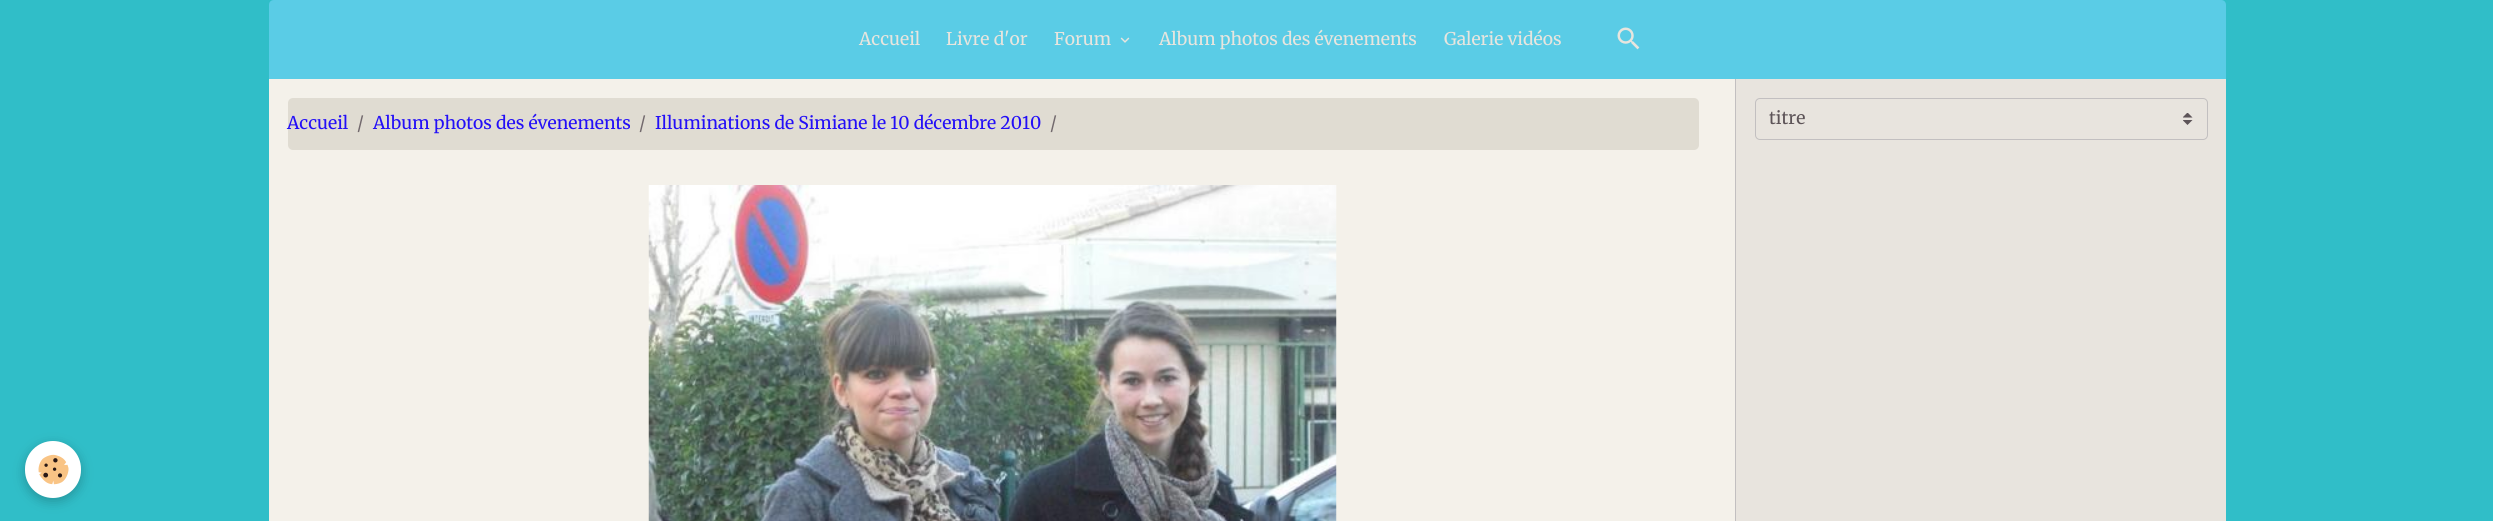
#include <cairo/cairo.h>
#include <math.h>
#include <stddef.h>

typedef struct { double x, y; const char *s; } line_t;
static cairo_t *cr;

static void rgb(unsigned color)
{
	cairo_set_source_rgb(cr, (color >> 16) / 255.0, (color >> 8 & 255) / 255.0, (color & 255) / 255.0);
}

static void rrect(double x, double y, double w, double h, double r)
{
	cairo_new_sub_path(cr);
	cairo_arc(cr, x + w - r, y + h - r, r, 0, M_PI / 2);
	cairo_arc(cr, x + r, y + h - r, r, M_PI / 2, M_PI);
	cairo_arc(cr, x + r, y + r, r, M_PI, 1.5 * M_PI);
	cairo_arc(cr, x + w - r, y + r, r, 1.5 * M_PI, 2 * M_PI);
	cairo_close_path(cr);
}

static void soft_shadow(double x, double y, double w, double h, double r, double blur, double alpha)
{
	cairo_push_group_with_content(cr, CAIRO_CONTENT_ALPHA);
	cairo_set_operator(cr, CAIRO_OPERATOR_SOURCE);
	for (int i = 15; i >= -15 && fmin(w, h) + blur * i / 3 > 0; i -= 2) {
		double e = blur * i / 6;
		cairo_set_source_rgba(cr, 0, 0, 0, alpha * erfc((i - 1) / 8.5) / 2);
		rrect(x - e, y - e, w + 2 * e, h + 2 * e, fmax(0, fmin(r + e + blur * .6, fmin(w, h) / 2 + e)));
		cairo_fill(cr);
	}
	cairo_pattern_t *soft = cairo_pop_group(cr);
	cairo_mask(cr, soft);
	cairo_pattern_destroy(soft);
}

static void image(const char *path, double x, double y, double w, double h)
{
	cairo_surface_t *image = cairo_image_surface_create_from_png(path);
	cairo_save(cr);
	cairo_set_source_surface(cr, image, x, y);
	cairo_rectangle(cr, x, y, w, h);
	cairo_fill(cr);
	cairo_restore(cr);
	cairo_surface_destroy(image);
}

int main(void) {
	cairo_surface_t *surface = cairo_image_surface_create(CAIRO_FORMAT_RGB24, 2493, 521);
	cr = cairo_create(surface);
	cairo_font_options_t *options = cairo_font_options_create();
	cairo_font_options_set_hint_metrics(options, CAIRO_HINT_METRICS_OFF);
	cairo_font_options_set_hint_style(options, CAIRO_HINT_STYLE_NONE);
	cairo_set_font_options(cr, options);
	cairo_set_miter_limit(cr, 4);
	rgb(0x30bec8);
	cairo_paint(cr);
	rgb(0x5acce6);
	cairo_new_path(cr);
	cairo_move_to(cr, 274, 0);
	cairo_line_to(cr, 2221, 0);
	cairo_curve_to(cr, 2224, 0, 2226, 2, 2226, 5);
	cairo_line_to(cr, 2226, 79);
	cairo_line_to(cr, 269, 79);
	cairo_line_to(cr, 269, 5);
	cairo_curve_to(cr, 269, 2, 271, 0, 274, 0);
	cairo_close_path(cr);
	cairo_fill(cr);
	image("img/1.png", 1120, 37, 10, 6);
	image("img/2.png", 1617, 27, 23, 23);
	rgb(0xf4f1ea);
	cairo_rectangle(cr, 269, 79, 1466, 442);
	cairo_fill(cr);
	rgb(0xe0dcd2);
	rrect(288, 98, 1411, 52, 5);
	cairo_fill(cr);
	rgb(0xc2bfc0);
	cairo_rectangle(cr, 1735, 79, 1, 442);
	cairo_fill(cr);
	image("img/3.png", 648, 185, 689, 336);
	rgb(0xe8e4de);
	cairo_rectangle(cr, 1736, 79, 490, 442);
	cairo_fill(cr);
	image("img/4.png", 2183, 113, 10, 12);
	rrect(1755.5, 98.5, 452, 41, 4.5);
	rgb(0xc2bfc0);
	cairo_set_line_width(cr, 1);
	cairo_stroke(cr);
	rgb(0x000000);
	soft_shadow(25, 445, 56, 56, 28, 6, 0.24);
	rgb(0xffffff);
	rrect(25, 441, 56, 57, 28);
	cairo_fill(cr);
	image("img/5.png", 38, 454, 31, 31);
	cairo_select_font_face(cr, "Merriweather", CAIRO_FONT_SLANT_NORMAL, CAIRO_FONT_WEIGHT_NORMAL);
	cairo_set_font_size(cr, 17.5);
	rgb(0xe8e5de);
	{
		static const line_t items[] = {
			{859, 45, "Accueil"},
			{946, 45, "Livre d'or"},
			{1054, 45, "Forum"},
			{1159, 45, "Album photos des évenements"},
			{1444, 45, "Galerie vidéos"},
		};
		for (size_t i = 0; i < sizeof items / sizeof *items; i++) {
			cairo_move_to(cr, items[i].x, items[i].y);
			cairo_show_text(cr, items[i].s);
		}
	}
	rgb(0x230ff7);
	cairo_move_to(cr, 287, 129);
	cairo_show_text(cr, "Accueil");
	rgb(0x72696d);
	cairo_move_to(cr, 357, 129);
	cairo_show_text(cr, "/");
	rgb(0x230ff7);
	cairo_move_to(cr, 373, 129);
	cairo_show_text(cr, "Album photos des évenements");
	rgb(0x72696d);
	cairo_move_to(cr, 639, 129);
	cairo_show_text(cr, "/");
	rgb(0x230ff7);
	cairo_move_to(cr, 655, 129);
	cairo_show_text(cr, "Illuminations de Simiane le 10 décembre 2010");
	rgb(0x72696d);
	cairo_move_to(cr, 1050, 129);
	cairo_show_text(cr, "/");
	rgb(0x5d5458);
	cairo_move_to(cr, 1769, 124);
	cairo_show_text(cr, "titre");
	cairo_surface_write_to_png(surface, "page.png");
	cairo_font_options_destroy(options);
	cairo_destroy(cr);
	cairo_surface_destroy(surface);
	return 0;
}
